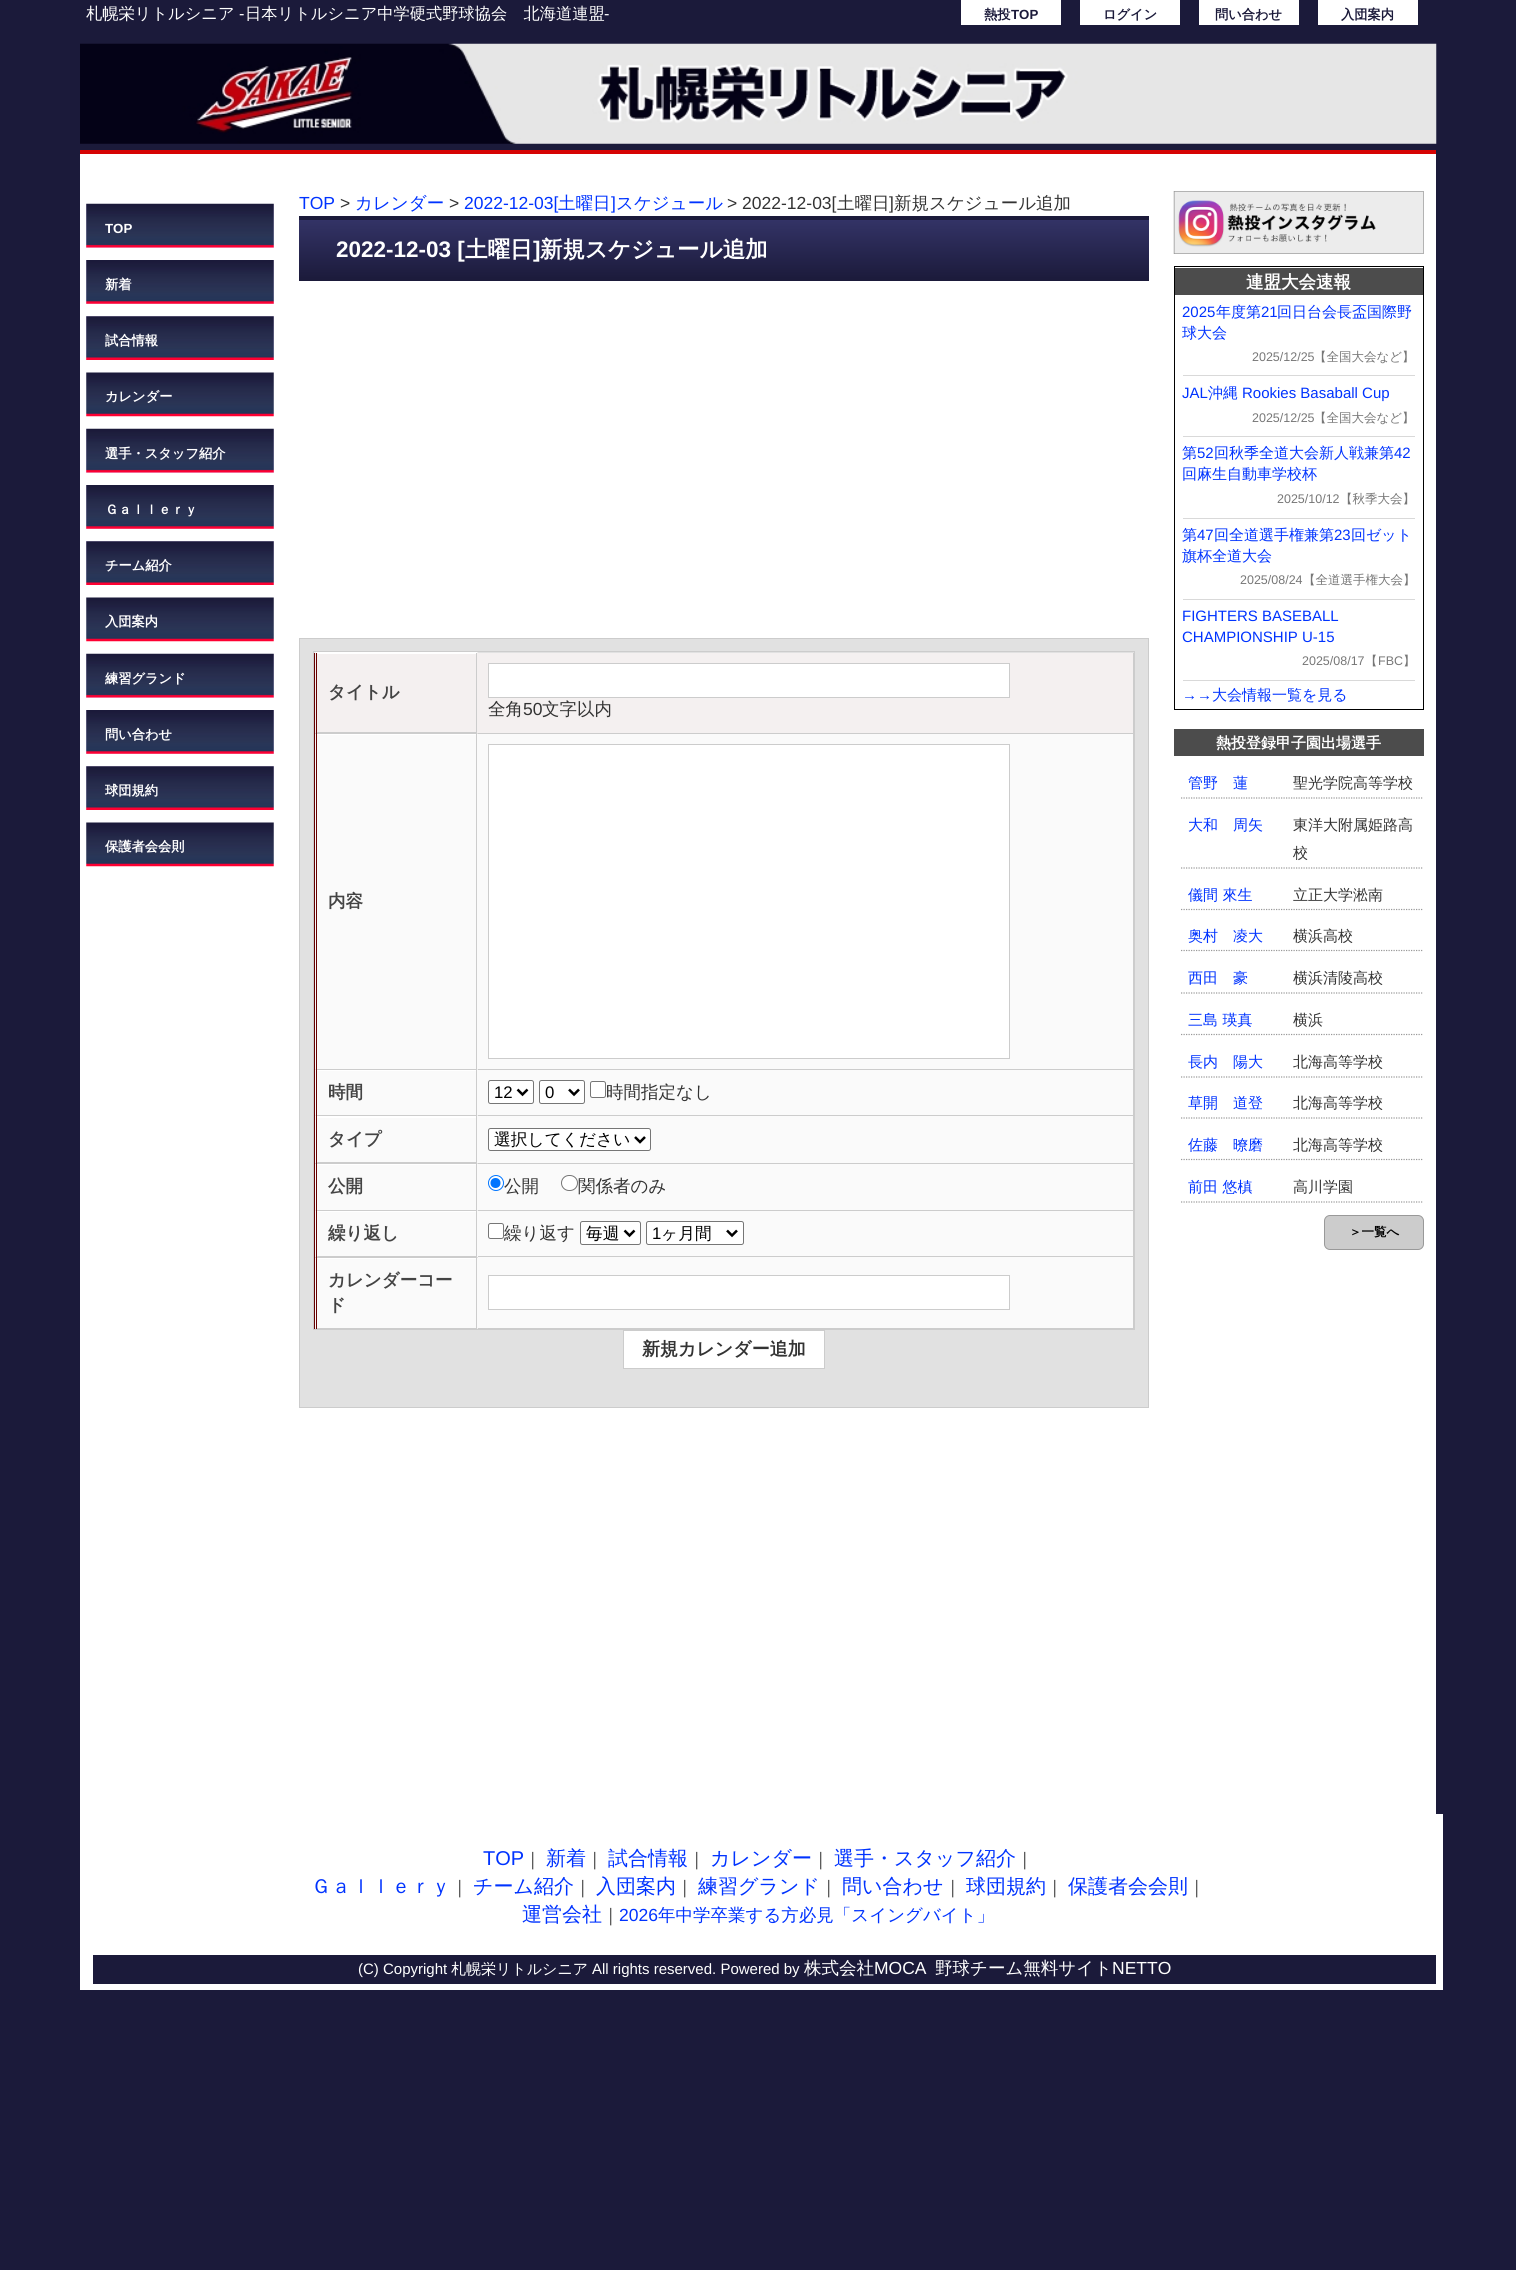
#include <cairo/cairo.h>
#include <math.h>
#include <stddef.h>

typedef struct { double x, y; const char *s; } line_t;
typedef struct { double x, y, w, h; unsigned color; } box_t;
static cairo_t *cr;

static void rgb(unsigned color)
{
	cairo_set_source_rgb(cr, (color >> 16) / 255.0, (color >> 8 & 255) / 255.0, (color & 255) / 255.0);
}

static void rrect(double x, double y, double w, double h, double r)
{
	cairo_new_sub_path(cr);
	cairo_arc(cr, x + w - r, y + h - r, r, 0, M_PI / 2);
	cairo_arc(cr, x + r, y + h - r, r, M_PI / 2, M_PI);
	cairo_arc(cr, x + r, y + r, r, M_PI, 1.5 * M_PI);
	cairo_arc(cr, x + w - r, y + r, r, 1.5 * M_PI, 2 * M_PI);
	cairo_close_path(cr);
}

static void image(const char *path, double x, double y, double w, double h)
{
	cairo_surface_t *image = cairo_image_surface_create_from_png(path);
	cairo_save(cr);
	cairo_set_source_surface(cr, image, x, y);
	cairo_rectangle(cr, x, y, w, h);
	cairo_fill(cr);
	cairo_restore(cr);
	cairo_surface_destroy(image);
}

int main(void) {
	cairo_surface_t *surface = cairo_image_surface_create(CAIRO_FORMAT_RGB24, 1516, 2270);
	cr = cairo_create(surface);
	cairo_font_options_t *options = cairo_font_options_create();
	cairo_font_options_set_hint_metrics(options, CAIRO_HINT_METRICS_OFF);
	cairo_font_options_set_hint_style(options, CAIRO_HINT_STYLE_NONE);
	cairo_set_font_options(cr, options);
	cairo_set_miter_limit(cr, 4);
	cairo_pattern_t *gradient;
	rgb(0x1b1a3a);
	cairo_paint(cr);
	{
		static const box_t items[] = {
			{80, 150, 1356, 4, 0xd60303},
			{961, 0, 100, 25, 0xffffff},
			{1080, 0, 100, 25, 0xffffff},
			{1199, 0, 100, 25, 0xffffff},
			{1318, 0, 100, 25, 0xffffff},
		};
		for (size_t i = 0; i < sizeof items / sizeof *items; i++) {
			rgb(items[i].color);
			cairo_rectangle(cr, items[i].x, items[i].y, items[i].w, items[i].h);
			cairo_fill(cr);
		}
	}
	image("img/1.png", 80, 43, 1357, 101);
	cairo_rectangle(cr, 80, 154, 1356, 1836);
	cairo_fill(cr);
	rgb(0xe6d9fa);
	cairo_rectangle(cr, 86, 204, 188, 44);
	cairo_fill(cr);
	image("img/2.png", 86, 203, 188, 45);
	cairo_rectangle(cr, 86, 260, 188, 44);
	cairo_fill(cr);
	image("img/3.png", 86, 260, 188, 44);
	cairo_rectangle(cr, 86, 316, 188, 44);
	cairo_fill(cr);
	image("img/4.png", 86, 316, 188, 44);
	image("img/5.png", 86, 372, 188, 45);
	cairo_rectangle(cr, 86, 429, 188, 44);
	cairo_fill(cr);
	image("img/2.png", 86, 428, 188, 45);
	cairo_rectangle(cr, 86, 485, 188, 44);
	cairo_fill(cr);
	image("img/3.png", 86, 485, 188, 44);
	cairo_rectangle(cr, 86, 541, 188, 44);
	cairo_fill(cr);
	image("img/4.png", 86, 541, 188, 44);
	image("img/5.png", 86, 597, 188, 45);
	cairo_rectangle(cr, 86, 654, 188, 44);
	cairo_fill(cr);
	image("img/2.png", 86, 653, 188, 45);
	cairo_rectangle(cr, 86, 710, 188, 44);
	cairo_fill(cr);
	image("img/3.png", 86, 710, 188, 44);
	cairo_rectangle(cr, 86, 766, 188, 44);
	cairo_fill(cr);
	image("img/4.png", 86, 766, 188, 44);
	image("img/5.png", 86, 822, 188, 45);
	gradient = cairo_pattern_create_linear(299, 220, 299, 281);
	cairo_pattern_add_color_stop_rgba(gradient, 0, 0.2, 0.2, 0.4, 1);
	cairo_pattern_add_color_stop_rgba(gradient, 1, 0.106, 0.102, 0.227, 1);
	cairo_set_source(cr, gradient);
	cairo_pattern_destroy(gradient);
	cairo_rectangle(cr, 299, 220, 850, 61);
	cairo_fill(cr);
	rgb(0x1b1a3a);
	cairo_rectangle(cr, 299, 216, 850, 4);
	cairo_fill(cr);
	rgb(0xe1e1e1);
	cairo_rectangle(cr, 299.5, 638.5, 849, 769);
	cairo_fill_preserve(cr);
	rgb(0xcccccc);
	cairo_set_line_width(cr, 1);
	cairo_stroke(cr);
	cairo_rectangle(cr, 313.5, 651.5, 821, 678);
	cairo_stroke(cr);
	rgb(0xf4f0f0);
	cairo_rectangle(cr, 315, 653, 163, 81);
	cairo_fill(cr);
	rgb(0xffffff);
	cairo_new_path(cr);
	cairo_move_to(cr, 314, 652);
	cairo_line_to(cr, 478, 652);
	cairo_line_to(cr, 476, 654);
	cairo_line_to(cr, 318, 654);
	cairo_close_path(cr);
	cairo_fill(cr);
	rgb(0xcccccc);
	cairo_rectangle(cr, 476, 653, 1, 81);
	cairo_fill(cr);
	cairo_new_path(cr);
	cairo_move_to(cr, 478, 734);
	cairo_line_to(cr, 314, 734);
	cairo_line_to(cr, 318, 732);
	cairo_line_to(cr, 476, 732);
	cairo_close_path(cr);
	cairo_fill(cr);
	{
		static const box_t items[] = {
			{314, 653, 1, 81, 0x660000},
			{316, 653, 1, 81, 0x660000},
			{478, 653, 655, 80, 0xf4f0f0},
			{1133, 653, 1, 676, 0xcccccc},
			{478, 733, 656, 1, 0xcccccc},
		};
		for (size_t i = 0; i < sizeof items / sizeof *items; i++) {
			rgb(items[i].color);
			cairo_rectangle(cr, items[i].x, items[i].y, items[i].w, items[i].h);
			cairo_fill(cr);
		}
	}
	rgb(0xffffff);
	cairo_rectangle(cr, 488.5, 663.5, 521, 34);
	cairo_fill_preserve(cr);
	rgb(0xcccccc);
	cairo_stroke(cr);
	rgb(0xfafafa);
	cairo_rectangle(cr, 315, 734, 163, 595);
	cairo_fill(cr);
	rgb(0xffffff);
	cairo_new_path(cr);
	cairo_move_to(cr, 314, 734);
	cairo_line_to(cr, 478, 734);
	cairo_line_to(cr, 476, 735);
	cairo_line_to(cr, 318, 735);
	cairo_close_path(cr);
	cairo_fill(cr);
	rgb(0xcccccc);
	cairo_rectangle(cr, 476, 734, 1, 336);
	cairo_fill(cr);
	cairo_new_path(cr);
	cairo_move_to(cr, 478, 1070);
	cairo_line_to(cr, 314, 1070);
	cairo_line_to(cr, 318, 1069);
	cairo_line_to(cr, 476, 1069);
	cairo_close_path(cr);
	cairo_fill(cr);
	{
		static const box_t items[] = {
			{314, 734, 1, 336, 0x660000},
			{316, 734, 1, 336, 0x660000},
			{478, 734, 655, 335, 0xfafafa},
			{478, 1069, 656, 1, 0xcccccc},
		};
		for (size_t i = 0; i < sizeof items / sizeof *items; i++) {
			rgb(items[i].color);
			cairo_rectangle(cr, items[i].x, items[i].y, items[i].w, items[i].h);
			cairo_fill(cr);
		}
	}
	rgb(0xffffff);
	cairo_rectangle(cr, 488.5, 744.5, 521, 314);
	cairo_fill_preserve(cr);
	rgb(0xcccccc);
	cairo_stroke(cr);
	rgb(0xffffff);
	cairo_new_path(cr);
	cairo_move_to(cr, 314, 1070);
	cairo_line_to(cr, 478, 1070);
	cairo_line_to(cr, 476, 1071);
	cairo_line_to(cr, 318, 1071);
	cairo_close_path(cr);
	cairo_fill(cr);
	rgb(0xcccccc);
	cairo_rectangle(cr, 476, 1070, 1, 46);
	cairo_fill(cr);
	cairo_new_path(cr);
	cairo_move_to(cr, 478, 1116);
	cairo_line_to(cr, 314, 1116);
	cairo_line_to(cr, 318, 1115);
	cairo_line_to(cr, 476, 1115);
	cairo_close_path(cr);
	cairo_fill(cr);
	{
		static const box_t items[] = {
			{314, 1070, 1, 46, 0x660000},
			{316, 1070, 1, 46, 0x660000},
			{478, 1070, 655, 45, 0xfafafa},
			{478, 1115, 656, 1, 0xcccccc},
		};
		for (size_t i = 0; i < sizeof items / sizeof *items; i++) {
			rgb(items[i].color);
			cairo_rectangle(cr, items[i].x, items[i].y, items[i].w, items[i].h);
			cairo_fill(cr);
		}
	}
	rgb(0xffffff);
	rrect(488.5, 1080.5, 45, 23, 2);
	cairo_fill_preserve(cr);
	rgb(0x767676);
	cairo_stroke(cr);
	cairo_new_path(cr);
	cairo_move_to(cr, 517.5, 1089.5);
	cairo_line_to(cr, 522.5, 1094.5);
	cairo_line_to(cr, 527.5, 1089.5);
	rgb(0x000000);
	cairo_set_line_width(cr, 2.5);
	cairo_stroke(cr);
	rgb(0xffffff);
	rrect(539.5, 1080.5, 45, 23, 2);
	cairo_fill_preserve(cr);
	rgb(0x767676);
	cairo_set_line_width(cr, 1);
	cairo_stroke(cr);
	cairo_new_path(cr);
	cairo_move_to(cr, 569, 1089.5);
	cairo_line_to(cr, 574, 1094.5);
	cairo_line_to(cr, 579, 1089.5);
	rgb(0x000000);
	cairo_set_line_width(cr, 2.5);
	cairo_stroke(cr);
	rgb(0xffffff);
	rrect(590.5, 1081.5, 15, 16, 2);
	cairo_fill_preserve(cr);
	rgb(0x767676);
	cairo_set_line_width(cr, 1);
	cairo_stroke(cr);
	rgb(0xffffff);
	cairo_new_path(cr);
	cairo_move_to(cr, 314, 1116);
	cairo_line_to(cr, 478, 1116);
	cairo_line_to(cr, 476, 1118);
	cairo_line_to(cr, 318, 1118);
	cairo_close_path(cr);
	cairo_fill(cr);
	rgb(0xcccccc);
	cairo_rectangle(cr, 476, 1116, 1, 48);
	cairo_fill(cr);
	cairo_new_path(cr);
	cairo_move_to(cr, 478, 1164);
	cairo_line_to(cr, 314, 1164);
	cairo_line_to(cr, 318, 1162);
	cairo_line_to(cr, 476, 1162);
	cairo_close_path(cr);
	cairo_fill(cr);
	{
		static const box_t items[] = {
			{314, 1116, 1, 48, 0x660000},
			{316, 1116, 1, 48, 0x660000},
			{478, 1116, 655, 47, 0xfafafa},
			{478, 1163, 656, 1, 0xcccccc},
		};
		for (size_t i = 0; i < sizeof items / sizeof *items; i++) {
			rgb(items[i].color);
			cairo_rectangle(cr, items[i].x, items[i].y, items[i].w, items[i].h);
			cairo_fill(cr);
		}
	}
	rgb(0xffffff);
	rrect(488.5, 1128.5, 162, 22, 2);
	cairo_fill_preserve(cr);
	rgb(0x767676);
	cairo_stroke(cr);
	cairo_new_path(cr);
	cairo_move_to(cr, 635, 1137);
	cairo_line_to(cr, 640, 1142);
	cairo_line_to(cr, 645, 1137);
	rgb(0x000000);
	cairo_set_line_width(cr, 2.5);
	cairo_stroke(cr);
	rgb(0xffffff);
	cairo_new_path(cr);
	cairo_move_to(cr, 314, 1164);
	cairo_line_to(cr, 478, 1164);
	cairo_line_to(cr, 476, 1165);
	cairo_line_to(cr, 318, 1165);
	cairo_close_path(cr);
	cairo_fill(cr);
	rgb(0xcccccc);
	cairo_rectangle(cr, 476, 1164, 1, 47);
	cairo_fill(cr);
	cairo_new_path(cr);
	cairo_move_to(cr, 478, 1211);
	cairo_line_to(cr, 314, 1211);
	cairo_line_to(cr, 318, 1210);
	cairo_line_to(cr, 476, 1210);
	cairo_close_path(cr);
	cairo_fill(cr);
	{
		static const box_t items[] = {
			{314, 1164, 1, 47, 0x660000},
			{316, 1164, 1, 47, 0x660000},
			{478, 1164, 655, 46, 0xfafafa},
			{478, 1210, 656, 1, 0xcccccc},
		};
		for (size_t i = 0; i < sizeof items / sizeof *items; i++) {
			rgb(items[i].color);
			cairo_rectangle(cr, items[i].x, items[i].y, items[i].w, items[i].h);
			cairo_fill(cr);
		}
	}
	rgb(0xffffff);
	cairo_arc(cr, 496, 1183, 7.5, 0, 2 * M_PI);
	cairo_fill_preserve(cr);
	rgb(0x0075ff);
	cairo_set_line_width(cr, 1);
	cairo_stroke(cr);
	cairo_arc(cr, 495.5, 1183, 5, 0, 2 * M_PI);
	cairo_fill(cr);
	rgb(0xffffff);
	rrect(561.5, 1175.5, 16, 15, 7.5);
	cairo_fill_preserve(cr);
	rgb(0x767676);
	cairo_stroke(cr);
	rgb(0xffffff);
	cairo_new_path(cr);
	cairo_move_to(cr, 314, 1211);
	cairo_line_to(cr, 478, 1211);
	cairo_line_to(cr, 476, 1212);
	cairo_line_to(cr, 318, 1212);
	cairo_close_path(cr);
	cairo_fill(cr);
	rgb(0xcccccc);
	cairo_rectangle(cr, 476, 1211, 1, 47);
	cairo_fill(cr);
	cairo_new_path(cr);
	cairo_move_to(cr, 478, 1258);
	cairo_line_to(cr, 314, 1258);
	cairo_line_to(cr, 318, 1256);
	cairo_line_to(cr, 476, 1256);
	cairo_close_path(cr);
	cairo_fill(cr);
	{
		static const box_t items[] = {
			{314, 1211, 1, 47, 0x660000},
			{316, 1211, 1, 47, 0x660000},
			{478, 1211, 655, 117, 0xfafafa},
			{478, 1256, 656, 1, 0xcccccc},
		};
		for (size_t i = 0; i < sizeof items / sizeof *items; i++) {
			rgb(items[i].color);
			cairo_rectangle(cr, items[i].x, items[i].y, items[i].w, items[i].h);
			cairo_fill(cr);
		}
	}
	rgb(0xffffff);
	rrect(488.5, 1223.5, 15, 15, 2);
	cairo_fill_preserve(cr);
	rgb(0x767676);
	cairo_stroke(cr);
	rgb(0xffffff);
	rrect(580.5, 1221.5, 60, 23, 2);
	cairo_fill_preserve(cr);
	rgb(0x767676);
	cairo_stroke(cr);
	cairo_new_path(cr);
	cairo_move_to(cr, 624.5, 1230.5);
	cairo_line_to(cr, 629.5, 1235.5);
	cairo_line_to(cr, 634.5, 1230.5);
	rgb(0x000000);
	cairo_set_line_width(cr, 2.5);
	cairo_stroke(cr);
	rgb(0xffffff);
	rrect(646.5, 1221.5, 97, 23, 2);
	cairo_fill_preserve(cr);
	rgb(0x767676);
	cairo_set_line_width(cr, 1);
	cairo_stroke(cr);
	cairo_new_path(cr);
	cairo_move_to(cr, 727, 1230.5);
	cairo_line_to(cr, 732, 1235.5);
	cairo_line_to(cr, 737, 1230.5);
	rgb(0x000000);
	cairo_set_line_width(cr, 2.5);
	cairo_stroke(cr);
	rgb(0xffffff);
	cairo_new_path(cr);
	cairo_move_to(cr, 314, 1258);
	cairo_line_to(cr, 478, 1258);
	cairo_line_to(cr, 476, 1259);
	cairo_line_to(cr, 318, 1259);
	cairo_close_path(cr);
	cairo_fill(cr);
	rgb(0xcccccc);
	cairo_rectangle(cr, 476, 1258, 1, 71);
	cairo_fill(cr);
	cairo_new_path(cr);
	cairo_move_to(cr, 478, 1329);
	cairo_line_to(cr, 314, 1329);
	cairo_line_to(cr, 318, 1328);
	cairo_line_to(cr, 476, 1328);
	cairo_close_path(cr);
	cairo_fill(cr);
	{
		static const box_t items[] = {
			{314, 1258, 1, 71, 0x660000},
			{316, 1258, 1, 71, 0x660000},
			{478, 1328, 656, 1, 0xcccccc},
		};
		for (size_t i = 0; i < sizeof items / sizeof *items; i++) {
			rgb(items[i].color);
			cairo_rectangle(cr, items[i].x, items[i].y, items[i].w, items[i].h);
			cairo_fill(cr);
		}
	}
	rgb(0xffffff);
	cairo_rectangle(cr, 488.5, 1275.5, 521, 34);
	cairo_fill_preserve(cr);
	rgb(0xcccccc);
	cairo_set_line_width(cr, 1);
	cairo_stroke(cr);
	rgb(0xffffff);
	cairo_rectangle(cr, 623.5, 1330.5, 201, 38);
	cairo_fill_preserve(cr);
	rgb(0xcccccc);
	cairo_stroke(cr);
	image("img/6.png", 1173, 191, 251, 63);
	cairo_rectangle(cr, 1174.5, 266.5, 249, 443);
	rgb(0x000000);
	cairo_stroke(cr);
	{
		static const box_t items[] = {
			{1175, 268, 248, 27, 0x4c4c4c},
			{1183, 375, 232, 1, 0xd9d9d9},
			{1183, 436, 232, 1, 0xd9d9d9},
			{1183, 518, 232, 1, 0xd9d9d9},
			{1183, 599, 232, 1, 0xd9d9d9},
			{1183, 680, 232, 1, 0xd9d9d9},
			{1174, 729, 250, 27, 0x4c4c4c},
		};
		for (size_t i = 0; i < sizeof items / sizeof *items; i++) {
			rgb(items[i].color);
			cairo_rectangle(cr, items[i].x, items[i].y, items[i].w, items[i].h);
			cairo_fill(cr);
		}
	}
	cairo_new_path(cr);
	cairo_move_to(cr, 1181, 798);
	cairo_line_to(cr, 1422.5, 798);
	rgb(0x999999);
	cairo_set_line_width(cr, 1.2);
	cairo_set_dash(cr, (double[]){1.25, 1.25}, 2, 0);
	cairo_stroke(cr);
	cairo_new_path(cr);
	cairo_move_to(cr, 1181, 868);
	cairo_line_to(cr, 1422.5, 868);
	cairo_stroke(cr);
	cairo_new_path(cr);
	cairo_move_to(cr, 1181, 909.5);
	cairo_line_to(cr, 1422.5, 909.5);
	cairo_stroke(cr);
	cairo_new_path(cr);
	cairo_move_to(cr, 1181, 950.5);
	cairo_line_to(cr, 1422.5, 950.5);
	cairo_stroke(cr);
	cairo_new_path(cr);
	cairo_move_to(cr, 1181, 993);
	cairo_line_to(cr, 1422.5, 993);
	cairo_stroke(cr);
	cairo_new_path(cr);
	cairo_move_to(cr, 1181, 1034.5);
	cairo_line_to(cr, 1422.5, 1034.5);
	cairo_stroke(cr);
	cairo_new_path(cr);
	cairo_move_to(cr, 1181, 1077);
	cairo_line_to(cr, 1422.5, 1077);
	cairo_stroke(cr);
	cairo_new_path(cr);
	cairo_move_to(cr, 1181, 1118);
	cairo_line_to(cr, 1422.5, 1118);
	cairo_stroke(cr);
	cairo_new_path(cr);
	cairo_move_to(cr, 1181, 1159.5);
	cairo_line_to(cr, 1422.5, 1159.5);
	cairo_stroke(cr);
	cairo_new_path(cr);
	cairo_move_to(cr, 1181, 1202);
	cairo_line_to(cr, 1422.5, 1202);
	cairo_stroke(cr);
	rgb(0xcccccc);
	rrect(1324.5, 1215.5, 99, 34, 5.5);
	cairo_fill_preserve(cr);
	rgb(0x999999);
	cairo_set_line_width(cr, 1);
	cairo_set_dash(cr, NULL, 0, 0);
	cairo_stroke(cr);
	rgb(0xffffff);
	cairo_rectangle(cr, 1436, 1814, 7, 176);
	cairo_fill(cr);
	rgb(0x1b1a3a);
	cairo_rectangle(cr, 93, 1955, 1343, 29);
	cairo_fill(cr);
	cairo_select_font_face(cr, "WenQuanYi Zen Hei Medium", CAIRO_FONT_SLANT_NORMAL, CAIRO_FONT_WEIGHT_NORMAL);
	cairo_set_font_size(cr, 16.25);
	rgb(0xffffff);
	cairo_move_to(cr, 86, 19);
	cairo_show_text(cr, "札幌栄リトルシニア");
	cairo_select_font_face(cr, "Liberation Sans", CAIRO_FONT_SLANT_NORMAL, CAIRO_FONT_WEIGHT_NORMAL);
	cairo_move_to(cr, 239, 19);
	cairo_show_text(cr, "-");
	cairo_select_font_face(cr, "WenQuanYi Zen Hei Medium", CAIRO_FONT_SLANT_NORMAL, CAIRO_FONT_WEIGHT_NORMAL);
	cairo_move_to(cr, 245, 19);
	cairo_show_text(cr, "日本リトルシニア中学硬式野球協会　北海道連盟");
	cairo_select_font_face(cr, "Liberation Sans", CAIRO_FONT_SLANT_NORMAL, CAIRO_FONT_WEIGHT_NORMAL);
	cairo_move_to(cr, 604, 19);
	cairo_show_text(cr, "-");
	cairo_select_font_face(cr, "WenQuanYi Zen Hei", CAIRO_FONT_SLANT_NORMAL, CAIRO_FONT_WEIGHT_BOLD);
	cairo_set_font_size(cr, 13.25);
	rgb(0x1b1a3a);
	cairo_move_to(cr, 984, 19);
	cairo_show_text(cr, "熱投");
	cairo_select_font_face(cr, "Liberation Sans", CAIRO_FONT_SLANT_NORMAL, CAIRO_FONT_WEIGHT_BOLD);
	cairo_move_to(cr, 1011, 19);
	cairo_show_text(cr, "TOP");
	cairo_select_font_face(cr, "WenQuanYi Zen Hei", CAIRO_FONT_SLANT_NORMAL, CAIRO_FONT_WEIGHT_BOLD);
	{
		static const line_t items[] = {
			{1103, 19, "ログイン"},
			{1215, 19, "問い合わせ"},
			{1341, 19, "入団案内"},
		};
		for (size_t i = 0; i < sizeof items / sizeof *items; i++) {
			cairo_move_to(cr, items[i].x, items[i].y);
			cairo_show_text(cr, items[i].s);
		}
	}
	cairo_select_font_face(cr, "Liberation Sans", CAIRO_FONT_SLANT_NORMAL, CAIRO_FONT_WEIGHT_BOLD);
	rgb(0xffffff);
	cairo_move_to(cr, 105, 233);
	cairo_show_text(cr, "TOP");
	cairo_select_font_face(cr, "WenQuanYi Zen Hei", CAIRO_FONT_SLANT_NORMAL, CAIRO_FONT_WEIGHT_BOLD);
	{
		static const line_t items[] = {
			{105, 289, "新着"},
			{105, 345, "試合情報"},
			{105, 401, "カレンダー"},
			{105, 458, "選手・スタッフ紹介"},
			{105, 514, "Ｇａｌｌｅｒｙ"},
			{105, 570, "チーム紹介"},
			{105, 626, "入団案内"},
			{105, 683, "練習グランド"},
			{105, 739, "問い合わせ"},
			{105, 795, "球団規約"},
			{105, 851, "保護者会会則"},
		};
		for (size_t i = 0; i < sizeof items / sizeof *items; i++) {
			cairo_move_to(cr, items[i].x, items[i].y);
			cairo_show_text(cr, items[i].s);
		}
	}
	cairo_select_font_face(cr, "Liberation Sans", CAIRO_FONT_SLANT_NORMAL, CAIRO_FONT_WEIGHT_NORMAL);
	cairo_set_font_size(cr, 17.5);
	rgb(0x0033ff);
	cairo_move_to(cr, 299, 209);
	cairo_show_text(cr, "TOP");
	rgb(0x333333);
	cairo_move_to(cr, 340, 209);
	cairo_show_text(cr, ">");
	cairo_select_font_face(cr, "WenQuanYi Zen Hei Medium", CAIRO_FONT_SLANT_NORMAL, CAIRO_FONT_WEIGHT_NORMAL);
	rgb(0x0033ff);
	cairo_move_to(cr, 355, 209);
	cairo_show_text(cr, "カレンダー");
	cairo_select_font_face(cr, "Liberation Sans", CAIRO_FONT_SLANT_NORMAL, CAIRO_FONT_WEIGHT_NORMAL);
	rgb(0x333333);
	cairo_move_to(cr, 449, 209);
	cairo_show_text(cr, ">");
	rgb(0x0033ff);
	cairo_move_to(cr, 464, 209);
	cairo_show_text(cr, "2022-12-03[");
	cairo_select_font_face(cr, "WenQuanYi Zen Hei Medium", CAIRO_FONT_SLANT_NORMAL, CAIRO_FONT_WEIGHT_NORMAL);
	cairo_move_to(cr, 558, 209);
	cairo_show_text(cr, "土曜日");
	cairo_select_font_face(cr, "Liberation Sans", CAIRO_FONT_SLANT_NORMAL, CAIRO_FONT_WEIGHT_NORMAL);
	cairo_move_to(cr, 611, 209);
	cairo_show_text(cr, "]");
	cairo_select_font_face(cr, "WenQuanYi Zen Hei Medium", CAIRO_FONT_SLANT_NORMAL, CAIRO_FONT_WEIGHT_NORMAL);
	cairo_move_to(cr, 616, 209);
	cairo_show_text(cr, "スケジュール");
	cairo_select_font_face(cr, "Liberation Sans", CAIRO_FONT_SLANT_NORMAL, CAIRO_FONT_WEIGHT_NORMAL);
	rgb(0x333333);
	cairo_move_to(cr, 727, 209);
	cairo_show_text(cr, "> 2022-12-03[");
	cairo_select_font_face(cr, "WenQuanYi Zen Hei Medium", CAIRO_FONT_SLANT_NORMAL, CAIRO_FONT_WEIGHT_NORMAL);
	cairo_move_to(cr, 837, 209);
	cairo_show_text(cr, "土曜日");
	cairo_select_font_face(cr, "Liberation Sans", CAIRO_FONT_SLANT_NORMAL, CAIRO_FONT_WEIGHT_NORMAL);
	cairo_move_to(cr, 889, 209);
	cairo_show_text(cr, "]");
	cairo_select_font_face(cr, "WenQuanYi Zen Hei Medium", CAIRO_FONT_SLANT_NORMAL, CAIRO_FONT_WEIGHT_NORMAL);
	cairo_move_to(cr, 894, 209);
	cairo_show_text(cr, "新規スケジュール追加");
	cairo_select_font_face(cr, "Liberation Sans", CAIRO_FONT_SLANT_NORMAL, CAIRO_FONT_WEIGHT_BOLD);
	cairo_set_font_size(cr, 22.5);
	rgb(0xffffff);
	cairo_move_to(cr, 336, 257);
	cairo_show_text(cr, "2022-12-03 [");
	cairo_select_font_face(cr, "WenQuanYi Zen Hei", CAIRO_FONT_SLANT_NORMAL, CAIRO_FONT_WEIGHT_BOLD);
	cairo_move_to(cr, 465, 257);
	cairo_show_text(cr, "土曜日");
	cairo_select_font_face(cr, "Liberation Sans", CAIRO_FONT_SLANT_NORMAL, CAIRO_FONT_WEIGHT_BOLD);
	cairo_move_to(cr, 533, 257);
	cairo_show_text(cr, "]");
	cairo_select_font_face(cr, "WenQuanYi Zen Hei", CAIRO_FONT_SLANT_NORMAL, CAIRO_FONT_WEIGHT_BOLD);
	cairo_move_to(cr, 540, 257);
	cairo_show_text(cr, "新規スケジュール追加");
	cairo_set_font_size(cr, 17.5);
	rgb(0x444444);
	cairo_move_to(cr, 328, 698);
	cairo_show_text(cr, "タイトル");
	cairo_select_font_face(cr, "WenQuanYi Zen Hei Medium", CAIRO_FONT_SLANT_NORMAL, CAIRO_FONT_WEIGHT_NORMAL);
	rgb(0x333333);
	cairo_move_to(cr, 488, 715);
	cairo_show_text(cr, "全角");
	cairo_select_font_face(cr, "Liberation Sans", CAIRO_FONT_SLANT_NORMAL, CAIRO_FONT_WEIGHT_NORMAL);
	cairo_move_to(cr, 523, 715);
	cairo_show_text(cr, "50");
	cairo_select_font_face(cr, "WenQuanYi Zen Hei Medium", CAIRO_FONT_SLANT_NORMAL, CAIRO_FONT_WEIGHT_NORMAL);
	cairo_move_to(cr, 542, 715);
	cairo_show_text(cr, "文字以内");
	cairo_select_font_face(cr, "WenQuanYi Zen Hei", CAIRO_FONT_SLANT_NORMAL, CAIRO_FONT_WEIGHT_BOLD);
	rgb(0x444444);
	cairo_move_to(cr, 328, 907);
	cairo_show_text(cr, "内容");
	cairo_move_to(cr, 328, 1098);
	cairo_show_text(cr, "時間");
	cairo_select_font_face(cr, "Liberation Sans", CAIRO_FONT_SLANT_NORMAL, CAIRO_FONT_WEIGHT_NORMAL);
	cairo_set_font_size(cr, 16.75);
	rgb(0x000000);
	cairo_move_to(cr, 494, 1098);
	cairo_show_text(cr, "12");
	cairo_move_to(cr, 545, 1098);
	cairo_show_text(cr, "0");
	cairo_select_font_face(cr, "WenQuanYi Zen Hei Medium", CAIRO_FONT_SLANT_NORMAL, CAIRO_FONT_WEIGHT_NORMAL);
	cairo_set_font_size(cr, 17.5);
	rgb(0x333333);
	cairo_move_to(cr, 606, 1098);
	cairo_show_text(cr, "時間指定なし");
	cairo_select_font_face(cr, "WenQuanYi Zen Hei", CAIRO_FONT_SLANT_NORMAL, CAIRO_FONT_WEIGHT_BOLD);
	rgb(0x444444);
	cairo_move_to(cr, 328, 1145);
	cairo_show_text(cr, "タイプ");
	cairo_select_font_face(cr, "WenQuanYi Zen Hei Medium", CAIRO_FONT_SLANT_NORMAL, CAIRO_FONT_WEIGHT_NORMAL);
	cairo_set_font_size(cr, 16.75);
	rgb(0x000000);
	cairo_move_to(cr, 494, 1145);
	cairo_show_text(cr, "選択してください");
	cairo_select_font_face(cr, "WenQuanYi Zen Hei", CAIRO_FONT_SLANT_NORMAL, CAIRO_FONT_WEIGHT_BOLD);
	cairo_set_font_size(cr, 17.5);
	rgb(0x444444);
	cairo_move_to(cr, 328, 1192);
	cairo_show_text(cr, "公開");
	cairo_select_font_face(cr, "WenQuanYi Zen Hei Medium", CAIRO_FONT_SLANT_NORMAL, CAIRO_FONT_WEIGHT_NORMAL);
	rgb(0x333333);
	cairo_move_to(cr, 504, 1192);
	cairo_show_text(cr, "公開");
	cairo_move_to(cr, 578, 1192);
	cairo_show_text(cr, "関係者のみ");
	cairo_select_font_face(cr, "WenQuanYi Zen Hei", CAIRO_FONT_SLANT_NORMAL, CAIRO_FONT_WEIGHT_BOLD);
	rgb(0x444444);
	cairo_move_to(cr, 328, 1239);
	cairo_show_text(cr, "繰り返し");
	cairo_select_font_face(cr, "WenQuanYi Zen Hei Medium", CAIRO_FONT_SLANT_NORMAL, CAIRO_FONT_WEIGHT_NORMAL);
	rgb(0x333333);
	cairo_move_to(cr, 504, 1239);
	cairo_show_text(cr, "繰り返す");
	cairo_set_font_size(cr, 16.75);
	rgb(0x000000);
	cairo_move_to(cr, 586, 1239);
	cairo_show_text(cr, "毎週");
	cairo_select_font_face(cr, "Liberation Sans", CAIRO_FONT_SLANT_NORMAL, CAIRO_FONT_WEIGHT_NORMAL);
	cairo_move_to(cr, 652, 1239);
	cairo_show_text(cr, "1");
	cairo_select_font_face(cr, "WenQuanYi Zen Hei Medium", CAIRO_FONT_SLANT_NORMAL, CAIRO_FONT_WEIGHT_NORMAL);
	cairo_move_to(cr, 661, 1239);
	cairo_show_text(cr, "ヶ月間");
	cairo_select_font_face(cr, "WenQuanYi Zen Hei", CAIRO_FONT_SLANT_NORMAL, CAIRO_FONT_WEIGHT_BOLD);
	cairo_set_font_size(cr, 17.5);
	rgb(0x444444);
	cairo_move_to(cr, 328, 1286);
	cairo_show_text(cr, "カレンダーコー");
	cairo_move_to(cr, 328, 1311);
	cairo_show_text(cr, "ド");
	cairo_set_font_size(cr, 18);
	rgb(0x333333);
	cairo_move_to(cr, 642, 1355);
	cairo_show_text(cr, "新規カレンダー追加");
	cairo_set_font_size(cr, 17.5);
	rgb(0xffffff);
	cairo_move_to(cr, 1246, 288);
	cairo_show_text(cr, "連盟大会速報");
	cairo_select_font_face(cr, "Liberation Sans", CAIRO_FONT_SLANT_NORMAL, CAIRO_FONT_WEIGHT_NORMAL);
	cairo_set_font_size(cr, 15);
	rgb(0x0033ff);
	cairo_move_to(cr, 1182, 317);
	cairo_show_text(cr, "2025");
	cairo_select_font_face(cr, "WenQuanYi Zen Hei Medium", CAIRO_FONT_SLANT_NORMAL, CAIRO_FONT_WEIGHT_NORMAL);
	cairo_move_to(cr, 1216, 317);
	cairo_show_text(cr, "年度第");
	cairo_select_font_face(cr, "Liberation Sans", CAIRO_FONT_SLANT_NORMAL, CAIRO_FONT_WEIGHT_NORMAL);
	cairo_move_to(cr, 1261, 317);
	cairo_show_text(cr, "21");
	cairo_select_font_face(cr, "WenQuanYi Zen Hei Medium", CAIRO_FONT_SLANT_NORMAL, CAIRO_FONT_WEIGHT_NORMAL);
	cairo_move_to(cr, 1277, 317);
	cairo_show_text(cr, "回日台会長盃国際野");
	cairo_move_to(cr, 1182, 338);
	cairo_show_text(cr, "球大会");
	cairo_select_font_face(cr, "Liberation Sans", CAIRO_FONT_SLANT_NORMAL, CAIRO_FONT_WEIGHT_NORMAL);
	cairo_set_font_size(cr, 12.5);
	rgb(0x777777);
	cairo_move_to(cr, 1252, 361);
	cairo_show_text(cr, "2025/12/25");
	cairo_select_font_face(cr, "WenQuanYi Zen Hei Medium", CAIRO_FONT_SLANT_NORMAL, CAIRO_FONT_WEIGHT_NORMAL);
	cairo_move_to(cr, 1314, 361);
	cairo_show_text(cr, "【全国大会など】");
	cairo_select_font_face(cr, "Liberation Sans", CAIRO_FONT_SLANT_NORMAL, CAIRO_FONT_WEIGHT_NORMAL);
	cairo_set_font_size(cr, 15);
	rgb(0x0033ff);
	cairo_move_to(cr, 1182, 398);
	cairo_show_text(cr, "JAL");
	cairo_select_font_face(cr, "WenQuanYi Zen Hei Medium", CAIRO_FONT_SLANT_NORMAL, CAIRO_FONT_WEIGHT_NORMAL);
	cairo_move_to(cr, 1208, 398);
	cairo_show_text(cr, "沖縄");
	cairo_select_font_face(cr, "Liberation Sans", CAIRO_FONT_SLANT_NORMAL, CAIRO_FONT_WEIGHT_NORMAL);
	cairo_move_to(cr, 1242, 398);
	cairo_show_text(cr, "Rookies Basaball Cup");
	cairo_set_font_size(cr, 12.5);
	rgb(0x777777);
	cairo_move_to(cr, 1252, 422);
	cairo_show_text(cr, "2025/12/25");
	cairo_select_font_face(cr, "WenQuanYi Zen Hei Medium", CAIRO_FONT_SLANT_NORMAL, CAIRO_FONT_WEIGHT_NORMAL);
	cairo_move_to(cr, 1314, 422);
	cairo_show_text(cr, "【全国大会など】");
	cairo_set_font_size(cr, 15);
	rgb(0x0033ff);
	cairo_move_to(cr, 1182, 458);
	cairo_show_text(cr, "第");
	cairo_select_font_face(cr, "Liberation Sans", CAIRO_FONT_SLANT_NORMAL, CAIRO_FONT_WEIGHT_NORMAL);
	cairo_move_to(cr, 1197, 458);
	cairo_show_text(cr, "52");
	cairo_select_font_face(cr, "WenQuanYi Zen Hei Medium", CAIRO_FONT_SLANT_NORMAL, CAIRO_FONT_WEIGHT_NORMAL);
	cairo_move_to(cr, 1214, 458);
	cairo_show_text(cr, "回秋季全道大会新人戦兼第");
	cairo_select_font_face(cr, "Liberation Sans", CAIRO_FONT_SLANT_NORMAL, CAIRO_FONT_WEIGHT_NORMAL);
	cairo_move_to(cr, 1394, 458);
	cairo_show_text(cr, "42");
	cairo_select_font_face(cr, "WenQuanYi Zen Hei Medium", CAIRO_FONT_SLANT_NORMAL, CAIRO_FONT_WEIGHT_NORMAL);
	cairo_move_to(cr, 1182, 479);
	cairo_show_text(cr, "回麻生自動車学校杯");
	cairo_select_font_face(cr, "Liberation Sans", CAIRO_FONT_SLANT_NORMAL, CAIRO_FONT_WEIGHT_NORMAL);
	cairo_set_font_size(cr, 12.5);
	rgb(0x777777);
	cairo_move_to(cr, 1277, 503);
	cairo_show_text(cr, "2025/10/12");
	cairo_select_font_face(cr, "WenQuanYi Zen Hei Medium", CAIRO_FONT_SLANT_NORMAL, CAIRO_FONT_WEIGHT_NORMAL);
	cairo_move_to(cr, 1340, 503);
	cairo_show_text(cr, "【秋季大会】");
	cairo_set_font_size(cr, 15);
	rgb(0x0033ff);
	cairo_move_to(cr, 1182, 540);
	cairo_show_text(cr, "第");
	cairo_select_font_face(cr, "Liberation Sans", CAIRO_FONT_SLANT_NORMAL, CAIRO_FONT_WEIGHT_NORMAL);
	cairo_move_to(cr, 1197, 540);
	cairo_show_text(cr, "47");
	cairo_select_font_face(cr, "WenQuanYi Zen Hei Medium", CAIRO_FONT_SLANT_NORMAL, CAIRO_FONT_WEIGHT_NORMAL);
	cairo_move_to(cr, 1214, 540);
	cairo_show_text(cr, "回全道選手権兼第");
	cairo_select_font_face(cr, "Liberation Sans", CAIRO_FONT_SLANT_NORMAL, CAIRO_FONT_WEIGHT_NORMAL);
	cairo_move_to(cr, 1334, 540);
	cairo_show_text(cr, "23");
	cairo_select_font_face(cr, "WenQuanYi Zen Hei Medium", CAIRO_FONT_SLANT_NORMAL, CAIRO_FONT_WEIGHT_NORMAL);
	cairo_move_to(cr, 1351, 540);
	cairo_show_text(cr, "回ゼット");
	cairo_move_to(cr, 1182, 561);
	cairo_show_text(cr, "旗杯全道大会");
	cairo_select_font_face(cr, "Liberation Sans", CAIRO_FONT_SLANT_NORMAL, CAIRO_FONT_WEIGHT_NORMAL);
	cairo_set_font_size(cr, 12.5);
	rgb(0x777777);
	cairo_move_to(cr, 1240, 584);
	cairo_show_text(cr, "2025/08/24");
	cairo_select_font_face(cr, "WenQuanYi Zen Hei Medium", CAIRO_FONT_SLANT_NORMAL, CAIRO_FONT_WEIGHT_NORMAL);
	cairo_move_to(cr, 1303, 584);
	cairo_show_text(cr, "【全道選手権大会】");
	cairo_select_font_face(cr, "Liberation Sans", CAIRO_FONT_SLANT_NORMAL, CAIRO_FONT_WEIGHT_NORMAL);
	cairo_set_font_size(cr, 15);
	rgb(0x0033ff);
	cairo_move_to(cr, 1182, 621);
	cairo_show_text(cr, "FIGHTERS BASEBALL");
	cairo_move_to(cr, 1182, 642);
	cairo_show_text(cr, "CHAMPIONSHIP U-15");
	cairo_set_font_size(cr, 12.5);
	rgb(0x777777);
	cairo_move_to(cr, 1302, 665);
	cairo_show_text(cr, "2025/08/17");
	cairo_select_font_face(cr, "WenQuanYi Zen Hei Medium", CAIRO_FONT_SLANT_NORMAL, CAIRO_FONT_WEIGHT_NORMAL);
	cairo_move_to(cr, 1365, 665);
	cairo_show_text(cr, "【");
	cairo_select_font_face(cr, "Liberation Sans", CAIRO_FONT_SLANT_NORMAL, CAIRO_FONT_WEIGHT_NORMAL);
	cairo_move_to(cr, 1378, 665);
	cairo_show_text(cr, "FBC");
	cairo_select_font_face(cr, "WenQuanYi Zen Hei Medium", CAIRO_FONT_SLANT_NORMAL, CAIRO_FONT_WEIGHT_NORMAL);
	cairo_move_to(cr, 1403, 665);
	cairo_show_text(cr, "】");
	cairo_select_font_face(cr, "Liberation Sans", CAIRO_FONT_SLANT_NORMAL, CAIRO_FONT_WEIGHT_NORMAL);
	cairo_set_font_size(cr, 15);
	rgb(0x0033ff);
	cairo_move_to(cr, 1182, 700);
	cairo_show_text(cr, "→→");
	cairo_select_font_face(cr, "WenQuanYi Zen Hei Medium", CAIRO_FONT_SLANT_NORMAL, CAIRO_FONT_WEIGHT_NORMAL);
	cairo_move_to(cr, 1212, 700);
	cairo_show_text(cr, "大会情報一覧を見る");
	cairo_select_font_face(cr, "WenQuanYi Zen Hei", CAIRO_FONT_SLANT_NORMAL, CAIRO_FONT_WEIGHT_BOLD);
	rgb(0xffffff);
	cairo_move_to(cr, 1216, 748);
	cairo_show_text(cr, "熱投登録甲子園出場選手");
	cairo_select_font_face(cr, "WenQuanYi Zen Hei Medium", CAIRO_FONT_SLANT_NORMAL, CAIRO_FONT_WEIGHT_NORMAL);
	rgb(0x0033ff);
	cairo_move_to(cr, 1188, 788);
	cairo_show_text(cr, "管野　蓮");
	rgb(0x333333);
	cairo_move_to(cr, 1293, 788);
	cairo_show_text(cr, "聖光学院高等学校");
	rgb(0x0033ff);
	cairo_move_to(cr, 1188, 830);
	cairo_show_text(cr, "大和　周矢");
	rgb(0x333333);
	cairo_move_to(cr, 1293, 830);
	cairo_show_text(cr, "東洋大附属姫路高");
	cairo_move_to(cr, 1293, 858);
	cairo_show_text(cr, "校");
	rgb(0x0033ff);
	cairo_move_to(cr, 1188, 900);
	cairo_show_text(cr, "儀間 來生");
	rgb(0x333333);
	cairo_move_to(cr, 1293, 900);
	cairo_show_text(cr, "立正大学淞南");
	rgb(0x0033ff);
	cairo_move_to(cr, 1188, 941);
	cairo_show_text(cr, "奥村　凌大");
	rgb(0x333333);
	cairo_move_to(cr, 1293, 941);
	cairo_show_text(cr, "横浜高校");
	rgb(0x0033ff);
	cairo_move_to(cr, 1188, 983);
	cairo_show_text(cr, "西田　豪");
	rgb(0x333333);
	cairo_move_to(cr, 1293, 983);
	cairo_show_text(cr, "横浜清陵高校");
	rgb(0x0033ff);
	cairo_move_to(cr, 1188, 1025);
	cairo_show_text(cr, "三島 瑛真");
	rgb(0x333333);
	cairo_move_to(cr, 1293, 1025);
	cairo_show_text(cr, "横浜");
	rgb(0x0033ff);
	cairo_move_to(cr, 1188, 1067);
	cairo_show_text(cr, "長内　陽大");
	rgb(0x333333);
	cairo_move_to(cr, 1293, 1067);
	cairo_show_text(cr, "北海高等学校");
	rgb(0x0033ff);
	cairo_move_to(cr, 1188, 1108);
	cairo_show_text(cr, "草開　道登");
	rgb(0x333333);
	cairo_move_to(cr, 1293, 1108);
	cairo_show_text(cr, "北海高等学校");
	rgb(0x0033ff);
	cairo_move_to(cr, 1188, 1150);
	cairo_show_text(cr, "佐藤　暸磨");
	rgb(0x333333);
	cairo_move_to(cr, 1293, 1150);
	cairo_show_text(cr, "北海高等学校");
	rgb(0x0033ff);
	cairo_move_to(cr, 1188, 1192);
	cairo_show_text(cr, "前田 悠槙");
	rgb(0x333333);
	cairo_move_to(cr, 1293, 1192);
	cairo_show_text(cr, "高川学園");
	cairo_select_font_face(cr, "WenQuanYi Zen Hei", CAIRO_FONT_SLANT_NORMAL, CAIRO_FONT_WEIGHT_BOLD);
	cairo_set_font_size(cr, 12.5);
	rgb(0x000000);
	cairo_move_to(cr, 1349, 1236);
	cairo_show_text(cr, "＞一覧へ");
	cairo_select_font_face(cr, "Liberation Sans", CAIRO_FONT_SLANT_NORMAL, CAIRO_FONT_WEIGHT_NORMAL);
	cairo_set_font_size(cr, 20);
	rgb(0x0033ff);
	cairo_move_to(cr, 483, 1865);
	cairo_show_text(cr, "TOP");
	cairo_select_font_face(cr, "WenQuanYi Zen Hei Medium", CAIRO_FONT_SLANT_NORMAL, CAIRO_FONT_WEIGHT_NORMAL);
	cairo_set_font_size(cr, 17.5);
	rgb(0x333333);
	cairo_move_to(cr, 524, 1865);
	cairo_show_text(cr, "｜");
	cairo_set_font_size(cr, 20);
	rgb(0x0033ff);
	cairo_move_to(cr, 546, 1865);
	cairo_show_text(cr, "新着");
	cairo_set_font_size(cr, 17.5);
	rgb(0x333333);
	cairo_move_to(cr, 586, 1865);
	cairo_show_text(cr, "｜");
	cairo_set_font_size(cr, 20);
	rgb(0x0033ff);
	cairo_move_to(cr, 608, 1865);
	cairo_show_text(cr, "試合情報");
	cairo_set_font_size(cr, 17.5);
	rgb(0x333333);
	cairo_move_to(cr, 688, 1865);
	cairo_show_text(cr, "｜");
	cairo_set_font_size(cr, 20);
	rgb(0x0033ff);
	cairo_move_to(cr, 710, 1865);
	cairo_show_text(cr, "カレンダー");
	cairo_set_font_size(cr, 17.5);
	rgb(0x333333);
	cairo_move_to(cr, 812, 1865);
	cairo_show_text(cr, "｜");
	cairo_set_font_size(cr, 20);
	rgb(0x0033ff);
	cairo_move_to(cr, 834, 1865);
	cairo_show_text(cr, "選手・スタッフ紹介");
	cairo_set_font_size(cr, 17.5);
	rgb(0x333333);
	cairo_move_to(cr, 1016, 1865);
	cairo_show_text(cr, "｜");
	cairo_set_font_size(cr, 20);
	rgb(0x0033ff);
	cairo_move_to(cr, 311, 1893);
	cairo_show_text(cr, "Ｇａｌｌｅｒｙ");
	cairo_set_font_size(cr, 17.5);
	rgb(0x333333);
	cairo_move_to(cr, 451, 1893);
	cairo_show_text(cr, "｜");
	cairo_set_font_size(cr, 20);
	rgb(0x0033ff);
	cairo_move_to(cr, 473, 1893);
	cairo_show_text(cr, "チーム紹介");
	cairo_set_font_size(cr, 17.5);
	rgb(0x333333);
	cairo_move_to(cr, 574, 1893);
	cairo_show_text(cr, "｜");
	cairo_set_font_size(cr, 20);
	rgb(0x0033ff);
	cairo_move_to(cr, 596, 1893);
	cairo_show_text(cr, "入団案内");
	cairo_set_font_size(cr, 17.5);
	rgb(0x333333);
	cairo_move_to(cr, 676, 1893);
	cairo_show_text(cr, "｜");
	cairo_set_font_size(cr, 20);
	rgb(0x0033ff);
	cairo_move_to(cr, 698, 1893);
	cairo_show_text(cr, "練習グランド");
	cairo_set_font_size(cr, 17.5);
	rgb(0x333333);
	cairo_move_to(cr, 820, 1893);
	cairo_show_text(cr, "｜");
	cairo_set_font_size(cr, 20);
	rgb(0x0033ff);
	cairo_move_to(cr, 842, 1893);
	cairo_show_text(cr, "問い合わせ");
	cairo_set_font_size(cr, 17.5);
	rgb(0x333333);
	cairo_move_to(cr, 944, 1893);
	cairo_show_text(cr, "｜");
	cairo_set_font_size(cr, 20);
	rgb(0x0033ff);
	cairo_move_to(cr, 966, 1893);
	cairo_show_text(cr, "球団規約");
	cairo_set_font_size(cr, 17.5);
	rgb(0x333333);
	cairo_move_to(cr, 1046, 1893);
	cairo_show_text(cr, "｜");
	cairo_set_font_size(cr, 20);
	rgb(0x0033ff);
	cairo_move_to(cr, 1068, 1893);
	cairo_show_text(cr, "保護者会会則");
	cairo_set_font_size(cr, 17.5);
	rgb(0x333333);
	cairo_move_to(cr, 1188, 1893);
	cairo_show_text(cr, "｜");
	cairo_set_font_size(cr, 20);
	rgb(0x0033ff);
	cairo_move_to(cr, 522, 1921);
	cairo_show_text(cr, "運営会社");
	cairo_set_font_size(cr, 17.5);
	rgb(0x333333);
	cairo_move_to(cr, 602, 1921);
	cairo_show_text(cr, "｜");
	cairo_select_font_face(cr, "Liberation Sans", CAIRO_FONT_SLANT_NORMAL, CAIRO_FONT_WEIGHT_NORMAL);
	rgb(0x0033ff);
	cairo_move_to(cr, 619, 1921);
	cairo_show_text(cr, "2026");
	cairo_select_font_face(cr, "WenQuanYi Zen Hei Medium", CAIRO_FONT_SLANT_NORMAL, CAIRO_FONT_WEIGHT_NORMAL);
	cairo_move_to(cr, 658, 1921);
	cairo_show_text(cr, "年中学卒業する方必見「スイングバイト」");
	cairo_select_font_face(cr, "Liberation Sans", CAIRO_FONT_SLANT_NORMAL, CAIRO_FONT_WEIGHT_NORMAL);
	cairo_set_font_size(cr, 15);
	rgb(0xffffff);
	cairo_move_to(cr, 358, 1974);
	cairo_show_text(cr, "(C) Copyright");
	cairo_select_font_face(cr, "WenQuanYi Zen Hei Medium", CAIRO_FONT_SLANT_NORMAL, CAIRO_FONT_WEIGHT_NORMAL);
	cairo_move_to(cr, 451, 1974);
	cairo_show_text(cr, "札幌栄リトルシニア");
	cairo_select_font_face(cr, "Liberation Sans", CAIRO_FONT_SLANT_NORMAL, CAIRO_FONT_WEIGHT_NORMAL);
	cairo_move_to(cr, 592, 1974);
	cairo_show_text(cr, "All rights reserved. Powered by");
	cairo_select_font_face(cr, "WenQuanYi Zen Hei Medium", CAIRO_FONT_SLANT_NORMAL, CAIRO_FONT_WEIGHT_NORMAL);
	cairo_set_font_size(cr, 17.5);
	cairo_move_to(cr, 804, 1974);
	cairo_show_text(cr, "株式会社");
	cairo_select_font_face(cr, "Liberation Sans", CAIRO_FONT_SLANT_NORMAL, CAIRO_FONT_WEIGHT_NORMAL);
	cairo_move_to(cr, 874, 1974);
	cairo_show_text(cr, "MOCA");
	cairo_select_font_face(cr, "WenQuanYi Zen Hei Medium", CAIRO_FONT_SLANT_NORMAL, CAIRO_FONT_WEIGHT_NORMAL);
	cairo_move_to(cr, 935, 1974);
	cairo_show_text(cr, "野球チーム無料サイト");
	cairo_select_font_face(cr, "Liberation Sans", CAIRO_FONT_SLANT_NORMAL, CAIRO_FONT_WEIGHT_NORMAL);
	cairo_move_to(cr, 1112, 1974);
	cairo_show_text(cr, "NETTO");
	cairo_surface_write_to_png(surface, "page.png");
	cairo_font_options_destroy(options);
	cairo_destroy(cr);
	cairo_surface_destroy(surface);
	return 0;
}
